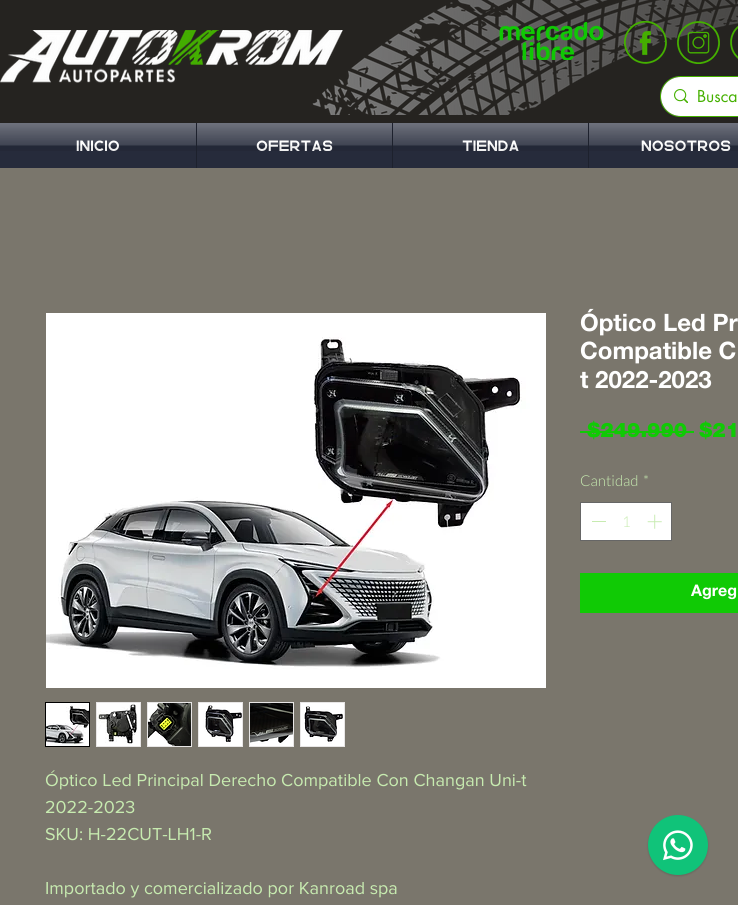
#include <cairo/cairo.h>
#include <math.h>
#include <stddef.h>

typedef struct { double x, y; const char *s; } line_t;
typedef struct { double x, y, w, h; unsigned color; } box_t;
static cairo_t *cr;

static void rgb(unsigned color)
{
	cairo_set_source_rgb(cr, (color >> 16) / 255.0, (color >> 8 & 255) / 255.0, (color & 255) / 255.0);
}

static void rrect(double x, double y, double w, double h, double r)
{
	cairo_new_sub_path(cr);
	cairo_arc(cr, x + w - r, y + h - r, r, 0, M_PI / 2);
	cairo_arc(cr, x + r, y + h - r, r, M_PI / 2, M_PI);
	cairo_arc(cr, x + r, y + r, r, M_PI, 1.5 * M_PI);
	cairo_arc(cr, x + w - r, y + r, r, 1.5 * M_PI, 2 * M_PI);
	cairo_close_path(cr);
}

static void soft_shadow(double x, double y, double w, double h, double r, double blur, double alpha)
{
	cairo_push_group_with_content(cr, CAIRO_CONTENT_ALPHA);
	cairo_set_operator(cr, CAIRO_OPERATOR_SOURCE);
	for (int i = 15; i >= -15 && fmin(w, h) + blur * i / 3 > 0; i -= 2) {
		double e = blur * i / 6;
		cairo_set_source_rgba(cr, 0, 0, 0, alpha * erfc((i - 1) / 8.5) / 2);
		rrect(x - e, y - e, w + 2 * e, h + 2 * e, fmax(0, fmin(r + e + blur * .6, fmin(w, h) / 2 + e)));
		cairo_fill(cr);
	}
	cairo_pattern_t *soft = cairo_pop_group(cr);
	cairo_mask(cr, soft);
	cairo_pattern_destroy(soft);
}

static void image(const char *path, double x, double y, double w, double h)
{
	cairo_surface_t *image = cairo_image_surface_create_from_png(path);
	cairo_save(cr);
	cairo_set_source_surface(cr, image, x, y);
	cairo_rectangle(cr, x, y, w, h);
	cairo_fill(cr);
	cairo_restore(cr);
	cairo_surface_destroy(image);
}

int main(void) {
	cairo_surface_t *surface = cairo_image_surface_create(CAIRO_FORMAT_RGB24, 738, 905);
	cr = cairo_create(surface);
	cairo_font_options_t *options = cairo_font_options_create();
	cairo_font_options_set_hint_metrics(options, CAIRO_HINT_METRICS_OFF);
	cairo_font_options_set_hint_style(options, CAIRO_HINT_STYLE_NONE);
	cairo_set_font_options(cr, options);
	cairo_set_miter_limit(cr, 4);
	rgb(0x7a766c);
	cairo_paint(cr);
	rgb(0x252320);
	cairo_rectangle(cr, 0, 0, 738, 123);
	cairo_fill(cr);
	image("img/1.png", 312, 0, 426, 115);
	image("img/2.png", 0, 30, 343, 53);
	image("img/3.png", 499, 22, 105, 38);
	image("img/4.png", 624, 21, 43, 43);
	image("img/5.png", 677, 21, 43, 43);
	image("img/6.png", 730, 26, 8, 33);
	rrect(660.5, 76.5, 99, 40, 20);
	rgb(0x45b000);
	cairo_set_line_width(cr, 1);
	cairo_stroke(cr);
	rgb(0xffffff);
	rrect(661, 77, 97, 39, 19.5);
	cairo_fill(cr);
	image("img/7.png", 674, 89, 14, 14);
	{
		static const box_t items[] = {
			{0, 123, 196, 45, 0x262b3b},
			{197, 123, 195, 45, 0x262b3b},
			{196, 123, 1, 45, 0x1d212d},
			{393, 123, 195, 45, 0x262b3b},
			{392, 123, 1, 45, 0x1d212d},
			{589, 123, 149, 45, 0x262b3b},
			{588, 123, 1, 45, 0x1d212d},
			{580, 431, 114, 2, 0x10ca05},
		};
		for (size_t i = 0; i < sizeof items / sizeof *items; i++) {
			rgb(items[i].color);
			cairo_rectangle(cr, items[i].x, items[i].y, items[i].w, items[i].h);
			cairo_fill(cr);
		}
	}
	rgb(0xffffff);
	cairo_rectangle(cr, 580.5, 502.5, 91, 38);
	cairo_fill_preserve(cr);
	rgb(0x666666);
	cairo_stroke(cr);
	rgb(0xc7ebb0);
	cairo_rectangle(cr, 592, 521, 14, 1);
	cairo_fill(cr);
	image("img/12.png", 647, 514, 15, 15);
	rgb(0x10ca05);
	cairo_rectangle(cr, 580, 573, 158, 40);
	cairo_fill(cr);
	image("img/13.png", 46, 313, 500, 375);
	cairo_rectangle(cr, 45.5, 702.5, 44, 44);
	rgb(0x000000);
	cairo_stroke(cr);
	image("img/14.png", 46, 703, 43, 43);
	rgb(0xe8e6e6);
	cairo_rectangle(cr, 96, 702, 45, 45);
	cairo_fill(cr);
	image("img/15.png", 97, 703, 43, 43);
	cairo_rectangle(cr, 147, 702, 45, 45);
	cairo_fill(cr);
	image("img/16.png", 148, 703, 43, 43);
	cairo_rectangle(cr, 198, 702, 45, 45);
	cairo_fill(cr);
	image("img/17.png", 199, 703, 43, 43);
	cairo_rectangle(cr, 249, 702, 45, 45);
	cairo_fill(cr);
	image("img/18.png", 250, 703, 43, 43);
	cairo_rectangle(cr, 300, 702, 45, 45);
	cairo_fill(cr);
	image("img/19.png", 301, 703, 43, 43);
	rgb(0x000000);
	soft_shadow(648, 816, 60, 60, 30, 1, 0.15);
	rgb(0x10c379);
	cairo_arc(cr, 678, 845, 30, 0, 2 * M_PI);
	cairo_fill(cr);
	image("img/20.png", 663, 830, 30, 31);
	cairo_select_font_face(cr, "futura", CAIRO_FONT_SLANT_NORMAL, CAIRO_FONT_WEIGHT_NORMAL);
	cairo_set_font_size(cr, 16);
	rgb(0x45b000);
	cairo_move_to(cr, 697, 102);
	cairo_show_text(cr, "Busca");
	cairo_select_font_face(cr, "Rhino", CAIRO_FONT_SLANT_NORMAL, CAIRO_FONT_WEIGHT_NORMAL);
	cairo_set_font_size(cr, 15);
	rgb(0xffffff);
	cairo_move_to(cr, 76, 151);
	cairo_show_text(cr, "Inicio");
	image("img/8.png", 0, 123, 196, 28);
	cairo_move_to(cr, 256, 151);
	cairo_show_text(cr, "Ofertas");
	image("img/9.png", 197, 123, 195, 28);
	cairo_move_to(cr, 462, 151);
	cairo_show_text(cr, "Tienda");
	image("img/10.png", 393, 123, 195, 28);
	cairo_move_to(cr, 641, 151);
	cairo_show_text(cr, "Nosotros");
	image("img/11.png", 589, 123, 149, 28);
	cairo_select_font_face(cr, "Helvetica Neue", CAIRO_FONT_SLANT_NORMAL, CAIRO_FONT_WEIGHT_BOLD);
	cairo_set_font_size(cr, 24);
	{
		static const line_t items[] = {
			{580, 331, "Óptico Led Pr"},
			{580, 359, "Compatible C"},
			{580, 388, "t 2022-2023"},
		};
		for (size_t i = 0; i < sizeof items / sizeof *items; i++) {
			cairo_move_to(cr, items[i].x, items[i].y);
			cairo_show_text(cr, items[i].s);
		}
	}
	cairo_select_font_face(cr, "Helvetica Neue Black", CAIRO_FONT_SLANT_NORMAL, CAIRO_FONT_WEIGHT_NORMAL);
	cairo_set_font_size(cr, 20);
	rgb(0x10ca05);
	cairo_move_to(cr, 587, 437);
	cairo_show_text(cr, "$249.990");
	cairo_move_to(cr, 699, 437);
	cairo_show_text(cr, "$21");
	cairo_select_font_face(cr, "Lato Light", CAIRO_FONT_SLANT_NORMAL, CAIRO_FONT_WEIGHT_NORMAL);
	cairo_set_font_size(cr, 15);
	rgb(0xc7ebb0);
	{
		static const line_t items[] = {
			{580, 486, "Cantidad"},
			{643, 486, "*"},
			{622, 527, "1"},
		};
		for (size_t i = 0; i < sizeof items / sizeof *items; i++) {
			cairo_move_to(cr, items[i].x, items[i].y);
			cairo_show_text(cr, items[i].s);
		}
	}
	cairo_select_font_face(cr, "Helvetica Neue", CAIRO_FONT_SLANT_NORMAL, CAIRO_FONT_WEIGHT_BOLD);
	cairo_set_font_size(cr, 16);
	rgb(0xffffff);
	cairo_move_to(cr, 691, 596);
	cairo_show_text(cr, "Agreg");
	cairo_select_font_face(cr, "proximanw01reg", CAIRO_FONT_SLANT_NORMAL, CAIRO_FONT_WEIGHT_NORMAL);
	cairo_set_font_size(cr, 18);
	rgb(0xc7ebb0);
	{
		static const line_t items[] = {
			{45, 786, "Óptico Led Principal Derecho Compatible Con Changan Uni-t"},
			{45, 813, "2022-2023"},
			{45, 840, "SKU: H-22CUT-LH1-R"},
			{45, 894, "Importado y comercializado por Kanroad spa"},
		};
		for (size_t i = 0; i < sizeof items / sizeof *items; i++) {
			cairo_move_to(cr, items[i].x, items[i].y);
			cairo_show_text(cr, items[i].s);
		}
	}
	cairo_surface_write_to_png(surface, "page.png");
	cairo_font_options_destroy(options);
	cairo_destroy(cr);
	cairo_surface_destroy(surface);
	return 0;
}
